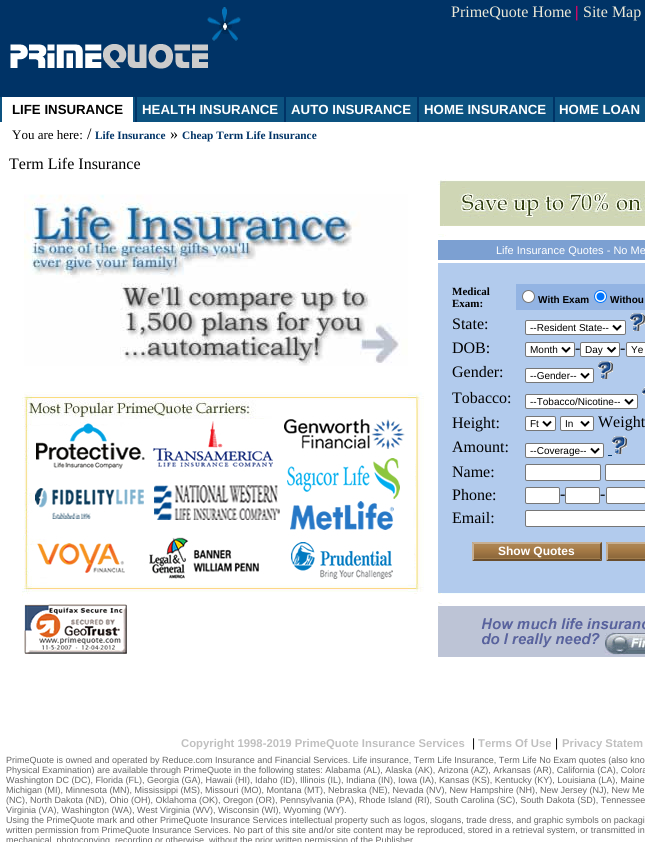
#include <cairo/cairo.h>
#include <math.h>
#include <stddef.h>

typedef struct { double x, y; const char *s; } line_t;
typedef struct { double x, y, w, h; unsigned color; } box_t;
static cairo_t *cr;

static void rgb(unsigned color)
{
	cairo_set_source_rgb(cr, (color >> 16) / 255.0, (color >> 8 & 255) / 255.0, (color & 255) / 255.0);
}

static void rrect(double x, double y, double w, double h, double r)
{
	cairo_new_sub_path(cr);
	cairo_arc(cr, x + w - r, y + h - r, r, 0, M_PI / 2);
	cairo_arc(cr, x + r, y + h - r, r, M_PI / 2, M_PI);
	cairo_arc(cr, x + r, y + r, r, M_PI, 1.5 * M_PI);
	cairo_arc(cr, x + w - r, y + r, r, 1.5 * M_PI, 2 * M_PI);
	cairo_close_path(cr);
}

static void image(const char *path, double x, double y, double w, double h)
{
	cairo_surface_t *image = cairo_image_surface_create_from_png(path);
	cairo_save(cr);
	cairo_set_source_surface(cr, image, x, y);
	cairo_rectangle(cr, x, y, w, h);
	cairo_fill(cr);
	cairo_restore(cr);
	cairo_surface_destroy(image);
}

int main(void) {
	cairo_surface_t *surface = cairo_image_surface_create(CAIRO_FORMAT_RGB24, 645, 842);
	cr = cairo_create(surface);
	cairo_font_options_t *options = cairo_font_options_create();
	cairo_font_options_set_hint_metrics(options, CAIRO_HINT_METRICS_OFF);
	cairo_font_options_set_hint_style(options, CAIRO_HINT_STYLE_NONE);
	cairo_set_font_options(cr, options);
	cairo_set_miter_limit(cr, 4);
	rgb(0xffffff);
	cairo_paint(cr);
	rgb(0x003366);
	cairo_rectangle(cr, 0, 0, 645, 122);
	cairo_fill(cr);
	image("img/1.png", 10, 7, 231, 62);
	{
		static const box_t items[] = {
			{0, 97, 2, 25, 0x0c5280},
			{2, 97, 131, 25, 0xffffff},
			{133, 97, 2, 25, 0x0c5280},
			{137, 97, 147, 25, 0x0c5280},
			{286, 97, 131, 25, 0x0c5280},
			{419, 97, 134, 25, 0x0c5280},
			{555, 97, 90, 25, 0x0c5280},
		};
		for (size_t i = 0; i < sizeof items / sizeof *items; i++) {
			rgb(items[i].color);
			cairo_rectangle(cr, items[i].x, items[i].y, items[i].w, items[i].h);
			cairo_fill(cr);
		}
	}
	image("img/2.png", 24, 194, 384, 172);
	image("img/3.png", 438, 179, 207, 47);
	image("img/4.png", 22, 397, 2, 199);
	image("img/5.png", 438, 234, 8, 3);
	rgb(0x7ca0d2);
	cairo_rectangle(cr, 438, 240, 207, 20);
	cairo_fill(cr);
	image("img/6.png", 24, 392, 400, 200);
	rgb(0xb2cbed);
	cairo_rectangle(cr, 438, 263, 207, 330);
	cairo_fill(cr);
	rgb(0x93b4e3);
	cairo_rectangle(cr, 516, 284, 129, 26);
	cairo_fill(cr);
	rgb(0xffffff);
	cairo_arc(cr, 528.5, 296.5, 6, 0, 2 * M_PI);
	cairo_fill_preserve(cr);
	rgb(0x767676);
	cairo_set_line_width(cr, 1);
	cairo_stroke(cr);
	rgb(0xffffff);
	cairo_arc(cr, 600.5, 296.5, 6, 0, 2 * M_PI);
	cairo_fill_preserve(cr);
	rgb(0x0075ff);
	cairo_stroke(cr);
	cairo_arc(cr, 600.5, 296.5, 4, 0, 2 * M_PI);
	cairo_fill(cr);
	rgb(0xffffff);
	rrect(525.5, 320.5, 100, 14, 1.5);
	cairo_fill_preserve(cr);
	rgb(0x767676);
	cairo_stroke(cr);
	cairo_new_path(cr);
	cairo_move_to(cr, 613, 325.5);
	cairo_line_to(cr, 617, 329.5);
	cairo_line_to(cr, 621, 325.5);
	rgb(0x000000);
	cairo_set_line_width(cr, 2);
	cairo_stroke(cr);
	image("img/7.png", 630, 313, 15, 18);
	rgb(0xffffff);
	rrect(525.5, 342.5, 49, 14, 1.5);
	cairo_fill_preserve(cr);
	rgb(0x767676);
	cairo_set_line_width(cr, 1);
	cairo_stroke(cr);
	cairo_new_path(cr);
	cairo_move_to(cr, 562, 347.5);
	cairo_line_to(cr, 566, 351.5);
	cairo_line_to(cr, 570, 347.5);
	rgb(0x000000);
	cairo_set_line_width(cr, 2);
	cairo_stroke(cr);
	rgb(0xffffff);
	rrect(580.5, 342.5, 39, 14, 1.5);
	cairo_fill_preserve(cr);
	rgb(0x767676);
	cairo_set_line_width(cr, 1);
	cairo_stroke(cr);
	cairo_new_path(cr);
	cairo_move_to(cr, 607.5, 347.5);
	cairo_line_to(cr, 611.5, 351.5);
	cairo_line_to(cr, 615.5, 347.5);
	rgb(0x000000);
	cairo_set_line_width(cr, 2);
	cairo_stroke(cr);
	rgb(0xffffff);
	rrect(626.5, 342.5, 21, 14, 1.5);
	cairo_fill_preserve(cr);
	rgb(0x767676);
	cairo_set_line_width(cr, 1);
	cairo_stroke(cr);
	rgb(0xffffff);
	rrect(525.5, 368.5, 68, 14, 1.5);
	cairo_fill_preserve(cr);
	rgb(0x767676);
	cairo_stroke(cr);
	cairo_new_path(cr);
	cairo_move_to(cr, 581, 373.5);
	cairo_line_to(cr, 585, 377.5);
	cairo_line_to(cr, 589, 373.5);
	rgb(0x000000);
	cairo_set_line_width(cr, 2);
	cairo_stroke(cr);
	image("img/7.png", 598, 361, 15, 18);
	image("img/8.png", 642, 387, 3, 8);
	rgb(0xffffff);
	rrect(525.5, 394.5, 112, 14, 1.5);
	cairo_fill_preserve(cr);
	rgb(0x767676);
	cairo_set_line_width(cr, 1);
	cairo_stroke(cr);
	cairo_new_path(cr);
	cairo_move_to(cr, 625, 399.5);
	cairo_line_to(cr, 629, 403.5);
	cairo_line_to(cr, 633, 399.5);
	rgb(0x000000);
	cairo_set_line_width(cr, 2);
	cairo_stroke(cr);
	rgb(0xffffff);
	rrect(525.5, 416.5, 30, 14, 1.5);
	cairo_fill_preserve(cr);
	rgb(0x767676);
	cairo_set_line_width(cr, 1);
	cairo_stroke(cr);
	cairo_new_path(cr);
	cairo_move_to(cr, 543, 421.5);
	cairo_line_to(cr, 547, 425.5);
	cairo_line_to(cr, 551, 421.5);
	rgb(0x000000);
	cairo_set_line_width(cr, 2);
	cairo_stroke(cr);
	rgb(0xffffff);
	rrect(560.5, 416.5, 33, 14, 1.5);
	cairo_fill_preserve(cr);
	rgb(0x767676);
	cairo_set_line_width(cr, 1);
	cairo_stroke(cr);
	cairo_new_path(cr);
	cairo_move_to(cr, 581, 421.5);
	cairo_line_to(cr, 585, 425.5);
	cairo_line_to(cr, 589, 421.5);
	rgb(0x000000);
	cairo_set_line_width(cr, 2);
	cairo_stroke(cr);
	rgb(0xffffff);
	rrect(525.5, 443.5, 78, 14, 1.5);
	cairo_fill_preserve(cr);
	rgb(0x767676);
	cairo_set_line_width(cr, 1);
	cairo_stroke(cr);
	cairo_new_path(cr);
	cairo_move_to(cr, 591, 448.5);
	cairo_line_to(cr, 595, 452.5);
	cairo_line_to(cr, 599, 448.5);
	rgb(0x000000);
	cairo_set_line_width(cr, 2);
	cairo_stroke(cr);
	rgb(0x003366);
	cairo_rectangle(cr, 608, 455, 4, 1);
	cairo_fill(cr);
	image("img/7.png", 612, 436, 15, 18);
	rgb(0xffffff);
	rrect(525.5, 464.5, 75, 16, 1.5);
	cairo_fill_preserve(cr);
	rgb(0x767676);
	cairo_set_line_width(cr, 1);
	cairo_stroke(cr);
	rgb(0xffffff);
	rrect(605.5, 464.5, 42, 16, 1.5);
	cairo_fill_preserve(cr);
	rgb(0x767676);
	cairo_stroke(cr);
	rgb(0xffffff);
	rrect(525.5, 487.5, 34, 16, 1.5);
	cairo_fill_preserve(cr);
	rgb(0x767676);
	cairo_stroke(cr);
	rgb(0xffffff);
	rrect(565.5, 487.5, 34, 16, 1.5);
	cairo_fill_preserve(cr);
	rgb(0x767676);
	cairo_stroke(cr);
	rgb(0xffffff);
	rrect(606.5, 487.5, 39, 16, 1.5);
	cairo_fill_preserve(cr);
	rgb(0x767676);
	cairo_stroke(cr);
	rgb(0xffffff);
	rrect(525.5, 510.5, 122, 16, 1.5);
	cairo_fill_preserve(cr);
	rgb(0x767676);
	cairo_stroke(cr);
	image("img/9.png", 472, 542, 130, 17);
	rgb(0xc7af92);
	cairo_new_path(cr);
	cairo_move_to(cr, 472, 542);
	cairo_line_to(cr, 602, 542);
	cairo_line_to(cr, 600, 544);
	cairo_line_to(cr, 474, 544);
	cairo_close_path(cr);
	cairo_fill(cr);
	rgb(0x6a4e2d);
	cairo_new_path(cr);
	cairo_move_to(cr, 602, 542);
	cairo_line_to(cr, 602, 561);
	cairo_line_to(cr, 600, 559);
	cairo_line_to(cr, 600, 544);
	cairo_close_path(cr);
	cairo_fill(cr);
	cairo_new_path(cr);
	cairo_move_to(cr, 602, 561);
	cairo_line_to(cr, 472, 561);
	cairo_line_to(cr, 474, 559);
	cairo_line_to(cr, 600, 559);
	cairo_close_path(cr);
	cairo_fill(cr);
	rgb(0xc7af92);
	cairo_new_path(cr);
	cairo_move_to(cr, 472, 561);
	cairo_line_to(cr, 472, 542);
	cairo_line_to(cr, 474, 544);
	cairo_line_to(cr, 474, 559);
	cairo_close_path(cr);
	cairo_fill(cr);
	image("img/10.png", 606, 542, 39, 17);
	cairo_new_path(cr);
	cairo_move_to(cr, 606, 542);
	cairo_line_to(cr, 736, 542);
	cairo_line_to(cr, 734, 544);
	cairo_line_to(cr, 608, 544);
	cairo_close_path(cr);
	cairo_fill(cr);
	rgb(0x6a4e2d);
	cairo_new_path(cr);
	cairo_move_to(cr, 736, 561);
	cairo_line_to(cr, 606, 561);
	cairo_line_to(cr, 608, 559);
	cairo_line_to(cr, 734, 559);
	cairo_close_path(cr);
	cairo_fill(cr);
	rgb(0xc7af92);
	cairo_new_path(cr);
	cairo_move_to(cr, 606, 561);
	cairo_line_to(cr, 606, 542);
	cairo_line_to(cr, 608, 544);
	cairo_line_to(cr, 608, 559);
	cairo_close_path(cr);
	cairo_fill(cr);
	image("img/11.png", 27, 592, 390, 2);
	image("img/12.png", 438, 593, 207, 11);
	image("img/13.png", 24, 604, 103, 50);
	image("img/14.png", 438, 606, 207, 51);
	cairo_select_font_face(cr, "Liberation Serif", CAIRO_FONT_SLANT_NORMAL, CAIRO_FONT_WEIGHT_NORMAL);
	cairo_set_font_size(cr, 16);
	rgb(0xece9d8);
	cairo_move_to(cr, 451, 17);
	cairo_show_text(cr, "PrimeQuote Home");
	cairo_select_font_face(cr, "Liberation Serif", CAIRO_FONT_SLANT_NORMAL, CAIRO_FONT_WEIGHT_BOLD);
	rgb(0xff0066);
	cairo_move_to(cr, 575, 17);
	cairo_show_text(cr, "|");
	cairo_select_font_face(cr, "Liberation Serif", CAIRO_FONT_SLANT_NORMAL, CAIRO_FONT_WEIGHT_NORMAL);
	rgb(0xece9d8);
	cairo_move_to(cr, 583, 17);
	cairo_show_text(cr, "Site Map");
	cairo_select_font_face(cr, "Liberation Sans", CAIRO_FONT_SLANT_NORMAL, CAIRO_FONT_WEIGHT_BOLD);
	cairo_set_font_size(cr, 13.25);
	rgb(0x000000);
	cairo_move_to(cr, 12, 114);
	cairo_show_text(cr, "LIFE INSURANCE");
	rgb(0xffffff);
	{
		static const line_t items[] = {
			{142, 114, "HEALTH INSURANCE"},
			{291, 114, "AUTO INSURANCE"},
			{424, 114, "HOME INSURANCE"},
			{559, 114, "HOME LOAN"},
		};
		for (size_t i = 0; i < sizeof items / sizeof *items; i++) {
			cairo_move_to(cr, items[i].x, items[i].y);
			cairo_show_text(cr, items[i].s);
		}
	}
	cairo_select_font_face(cr, "Liberation Serif", CAIRO_FONT_SLANT_NORMAL, CAIRO_FONT_WEIGHT_NORMAL);
	cairo_set_font_size(cr, 13);
	rgb(0x000000);
	cairo_move_to(cr, 12, 139);
	cairo_show_text(cr, "You are here:");
	cairo_set_font_size(cr, 16);
	cairo_move_to(cr, 87, 139);
	cairo_show_text(cr, "/");
	cairo_select_font_face(cr, "Liberation Serif", CAIRO_FONT_SLANT_NORMAL, CAIRO_FONT_WEIGHT_BOLD);
	cairo_set_font_size(cr, 11.3);
	rgb(0x003366);
	cairo_move_to(cr, 95, 139);
	cairo_show_text(cr, "Life Insurance");
	cairo_select_font_face(cr, "Liberation Serif", CAIRO_FONT_SLANT_NORMAL, CAIRO_FONT_WEIGHT_NORMAL);
	cairo_set_font_size(cr, 16);
	rgb(0x000000);
	cairo_move_to(cr, 170, 139);
	cairo_show_text(cr, "»");
	cairo_select_font_face(cr, "Liberation Serif", CAIRO_FONT_SLANT_NORMAL, CAIRO_FONT_WEIGHT_BOLD);
	cairo_set_font_size(cr, 11.3);
	rgb(0x003366);
	cairo_move_to(cr, 182, 139);
	cairo_show_text(cr, "Cheap Term Life Insurance");
	cairo_select_font_face(cr, "Liberation Serif", CAIRO_FONT_SLANT_NORMAL, CAIRO_FONT_WEIGHT_NORMAL);
	cairo_set_font_size(cr, 16);
	rgb(0x000000);
	cairo_move_to(cr, 9, 169);
	cairo_show_text(cr, "Term Life Insurance");
	cairo_select_font_face(cr, "Liberation Sans", CAIRO_FONT_SLANT_NORMAL, CAIRO_FONT_WEIGHT_NORMAL);
	cairo_set_font_size(cr, 11);
	rgb(0xffffff);
	cairo_move_to(cr, 496, 254);
	cairo_show_text(cr, "Life Insurance Quotes - No Me");
	cairo_select_font_face(cr, "Liberation Serif", CAIRO_FONT_SLANT_NORMAL, CAIRO_FONT_WEIGHT_BOLD);
	rgb(0x000000);
	cairo_move_to(cr, 452, 295);
	cairo_show_text(cr, "Medical");
	cairo_move_to(cr, 452, 307);
	cairo_show_text(cr, "Exam:");
	cairo_select_font_face(cr, "Liberation Sans", CAIRO_FONT_SLANT_NORMAL, CAIRO_FONT_WEIGHT_BOLD);
	cairo_set_font_size(cr, 10);
	cairo_move_to(cr, 538, 303);
	cairo_show_text(cr, "With Exam");
	cairo_move_to(cr, 610, 303);
	cairo_show_text(cr, "Withou");
	cairo_select_font_face(cr, "Liberation Serif", CAIRO_FONT_SLANT_NORMAL, CAIRO_FONT_WEIGHT_NORMAL);
	cairo_set_font_size(cr, 16);
	cairo_move_to(cr, 452, 329);
	cairo_show_text(cr, "State:");
	cairo_select_font_face(cr, "Liberation Sans", CAIRO_FONT_SLANT_NORMAL, CAIRO_FONT_WEIGHT_NORMAL);
	cairo_set_font_size(cr, 10);
	cairo_move_to(cr, 530, 331);
	cairo_show_text(cr, "--Resident State--");
	cairo_select_font_face(cr, "Liberation Serif", CAIRO_FONT_SLANT_NORMAL, CAIRO_FONT_WEIGHT_NORMAL);
	cairo_set_font_size(cr, 16);
	cairo_move_to(cr, 452, 353);
	cairo_show_text(cr, "DOB:");
	cairo_select_font_face(cr, "Liberation Sans", CAIRO_FONT_SLANT_NORMAL, CAIRO_FONT_WEIGHT_NORMAL);
	cairo_set_font_size(cr, 10);
	cairo_move_to(cr, 530, 353);
	cairo_show_text(cr, "Month");
	cairo_select_font_face(cr, "Liberation Serif", CAIRO_FONT_SLANT_NORMAL, CAIRO_FONT_WEIGHT_NORMAL);
	cairo_set_font_size(cr, 16);
	cairo_move_to(cr, 575, 353);
	cairo_show_text(cr, "-");
	cairo_select_font_face(cr, "Liberation Sans", CAIRO_FONT_SLANT_NORMAL, CAIRO_FONT_WEIGHT_NORMAL);
	cairo_set_font_size(cr, 10);
	cairo_move_to(cr, 585, 353);
	cairo_show_text(cr, "Day");
	cairo_select_font_face(cr, "Liberation Serif", CAIRO_FONT_SLANT_NORMAL, CAIRO_FONT_WEIGHT_NORMAL);
	cairo_set_font_size(cr, 16);
	cairo_move_to(cr, 620, 353);
	cairo_show_text(cr, "-");
	cairo_select_font_face(cr, "Liberation Sans", CAIRO_FONT_SLANT_NORMAL, CAIRO_FONT_WEIGHT_NORMAL);
	cairo_set_font_size(cr, 10);
	cairo_move_to(cr, 631, 353);
	cairo_show_text(cr, "Ye");
	cairo_select_font_face(cr, "Liberation Serif", CAIRO_FONT_SLANT_NORMAL, CAIRO_FONT_WEIGHT_NORMAL);
	cairo_set_font_size(cr, 16);
	cairo_move_to(cr, 452, 377);
	cairo_show_text(cr, "Gender:");
	cairo_select_font_face(cr, "Liberation Sans", CAIRO_FONT_SLANT_NORMAL, CAIRO_FONT_WEIGHT_NORMAL);
	cairo_set_font_size(cr, 10);
	cairo_move_to(cr, 530, 379);
	cairo_show_text(cr, "--Gender--");
	cairo_select_font_face(cr, "Liberation Serif", CAIRO_FONT_SLANT_NORMAL, CAIRO_FONT_WEIGHT_NORMAL);
	cairo_set_font_size(cr, 16);
	cairo_move_to(cr, 452, 403);
	cairo_show_text(cr, "Tobacco:");
	cairo_select_font_face(cr, "Liberation Sans", CAIRO_FONT_SLANT_NORMAL, CAIRO_FONT_WEIGHT_NORMAL);
	cairo_set_font_size(cr, 10);
	cairo_move_to(cr, 530, 405);
	cairo_show_text(cr, "--Tobacco/Nicotine--");
	cairo_select_font_face(cr, "Liberation Serif", CAIRO_FONT_SLANT_NORMAL, CAIRO_FONT_WEIGHT_NORMAL);
	cairo_set_font_size(cr, 16);
	cairo_move_to(cr, 452, 428);
	cairo_show_text(cr, "Height:");
	cairo_select_font_face(cr, "Liberation Sans", CAIRO_FONT_SLANT_NORMAL, CAIRO_FONT_WEIGHT_NORMAL);
	cairo_set_font_size(cr, 10);
	cairo_move_to(cr, 530, 427);
	cairo_show_text(cr, "Ft");
	cairo_move_to(cr, 565, 427);
	cairo_show_text(cr, "In");
	cairo_select_font_face(cr, "Liberation Serif", CAIRO_FONT_SLANT_NORMAL, CAIRO_FONT_WEIGHT_NORMAL);
	cairo_set_font_size(cr, 16);
	cairo_move_to(cr, 598, 427);
	cairo_show_text(cr, "Weight");
	cairo_move_to(cr, 452, 452);
	cairo_show_text(cr, "Amount:");
	cairo_select_font_face(cr, "Liberation Sans", CAIRO_FONT_SLANT_NORMAL, CAIRO_FONT_WEIGHT_NORMAL);
	cairo_set_font_size(cr, 10);
	cairo_move_to(cr, 530, 454);
	cairo_show_text(cr, "--Coverage--");
	cairo_select_font_face(cr, "Liberation Serif", CAIRO_FONT_SLANT_NORMAL, CAIRO_FONT_WEIGHT_NORMAL);
	cairo_set_font_size(cr, 16);
	{
		static const line_t items[] = {
			{452, 477, "Name:"},
			{452, 500, "Phone:"},
			{560, 499, "-"},
			{600, 499, "-"},
			{452, 523, "Email:"},
		};
		for (size_t i = 0; i < sizeof items / sizeof *items; i++) {
			cairo_move_to(cr, items[i].x, items[i].y);
			cairo_show_text(cr, items[i].s);
		}
	}
	cairo_select_font_face(cr, "Liberation Sans", CAIRO_FONT_SLANT_NORMAL, CAIRO_FONT_WEIGHT_BOLD);
	cairo_set_font_size(cr, 12);
	rgb(0xffffff);
	cairo_move_to(cr, 498, 555);
	cairo_show_text(cr, "Show Quotes");
	cairo_set_font_size(cr, 11.3);
	rgb(0xc0c0c0);
	cairo_move_to(cr, 181, 747);
	cairo_show_text(cr, "Copyright 1998-2019 PrimeQuote Insurance Services");
	cairo_select_font_face(cr, "Liberation Sans", CAIRO_FONT_SLANT_NORMAL, CAIRO_FONT_WEIGHT_NORMAL);
	cairo_set_font_size(cr, 12);
	rgb(0x000000);
	cairo_move_to(cr, 472, 747);
	cairo_show_text(cr, "|");
	cairo_select_font_face(cr, "Liberation Sans", CAIRO_FONT_SLANT_NORMAL, CAIRO_FONT_WEIGHT_BOLD);
	cairo_set_font_size(cr, 11.3);
	rgb(0xc0c0c0);
	cairo_move_to(cr, 478, 747);
	cairo_show_text(cr, "Terms Of Use");
	cairo_select_font_face(cr, "Liberation Sans", CAIRO_FONT_SLANT_NORMAL, CAIRO_FONT_WEIGHT_NORMAL);
	cairo_set_font_size(cr, 12);
	rgb(0x000000);
	cairo_move_to(cr, 555, 747);
	cairo_show_text(cr, "|");
	cairo_select_font_face(cr, "Liberation Sans", CAIRO_FONT_SLANT_NORMAL, CAIRO_FONT_WEIGHT_BOLD);
	cairo_set_font_size(cr, 11.3);
	rgb(0xc0c0c0);
	cairo_move_to(cr, 562, 747);
	cairo_show_text(cr, "Privacy Statem");
	cairo_select_font_face(cr, "Liberation Sans", CAIRO_FONT_SLANT_NORMAL, CAIRO_FONT_WEIGHT_NORMAL);
	cairo_set_font_size(cr, 9);
	rgb(0x666666);
	{
		static const line_t items[] = {
			{6, 763, "PrimeQuote is owned and operated by Reduce.com Insurance and Financial Services. Life insurance, Term Life Insurance, Term Life No Exam quotes (also kno"},
			{6, 773, "Physical Examination) are available through PrimeQuote in the following states: Alabama (AL), Alaska (AK), Arizona (AZ), Arkansas (AR), California (CA), Colora"},
			{6, 783, "Washington DC (DC), Florida (FL), Georgia (GA), Hawaii (HI), Idaho (ID), Illinois (IL), Indiana (IN), Iowa (IA), Kansas (KS), Kentucky (KY), Louisiana (LA), Maine"},
			{6, 793, "Michigan (MI), Minnesota (MN), Mississippi (MS), Missouri (MO), Montana (MT), Nebraska (NE), Nevada (NV), New Hampshire (NH), New Jersey (NJ), New Me"},
			{6, 803, "(NC), North Dakota (ND), Ohio (OH), Oklahoma (OK), Oregon (OR), Pennsylvania (PA), Rhode Island (RI), South Carolina (SC), South Dakota (SD), Tennessee"},
			{6, 813, "Virginia (VA), Washington (WA), West Virginia (WV), Wisconsin (WI), Wyoming (WY)."},
			{6, 823, "Using the PrimeQuote mark and other PrimeQuote Insurance Services intellectual property such as logos, slogans, trade dress, and graphic symbols on packagi"},
			{6, 833, "written permission from PrimeQuote Insurance Services. No part of this site and/or site content may be reproduced, stored in a retrieval system, or transmitted in"},
			{6, 843, "mechanical, photocopying, recording or otherwise"},
			{209, 843, "without the prior written permission of the Publisher"},
		};
		for (size_t i = 0; i < sizeof items / sizeof *items; i++) {
			cairo_move_to(cr, items[i].x, items[i].y);
			cairo_show_text(cr, items[i].s);
		}
	}
	cairo_surface_write_to_png(surface, "page.png");
	cairo_font_options_destroy(options);
	cairo_destroy(cr);
	cairo_surface_destroy(surface);
	return 0;
}
